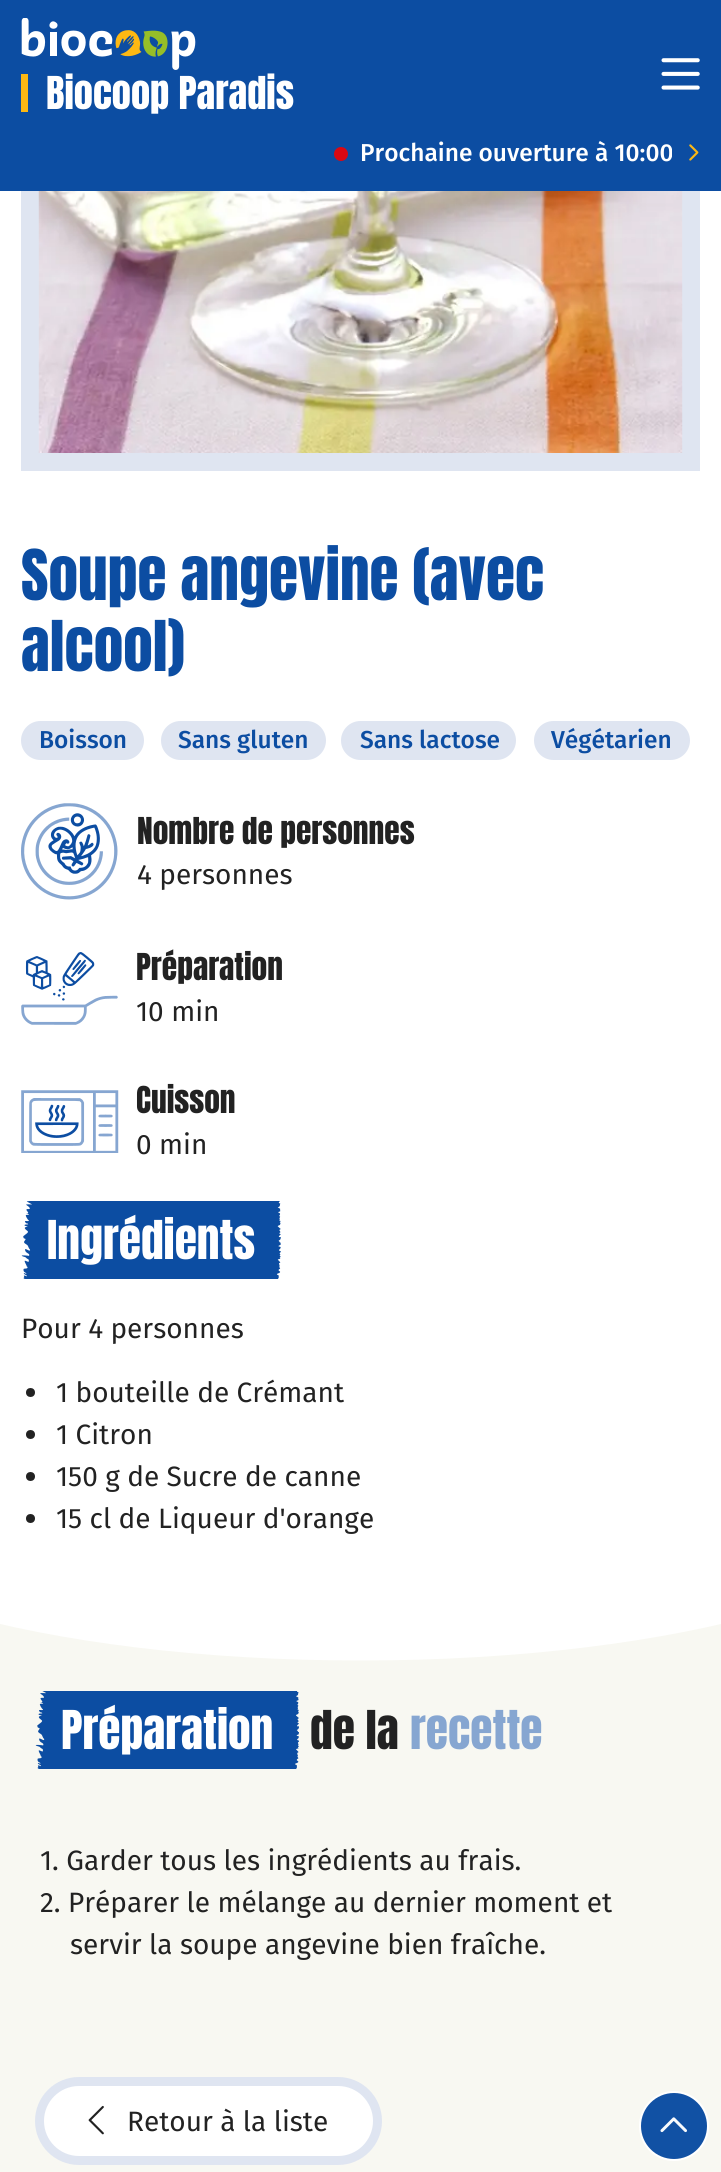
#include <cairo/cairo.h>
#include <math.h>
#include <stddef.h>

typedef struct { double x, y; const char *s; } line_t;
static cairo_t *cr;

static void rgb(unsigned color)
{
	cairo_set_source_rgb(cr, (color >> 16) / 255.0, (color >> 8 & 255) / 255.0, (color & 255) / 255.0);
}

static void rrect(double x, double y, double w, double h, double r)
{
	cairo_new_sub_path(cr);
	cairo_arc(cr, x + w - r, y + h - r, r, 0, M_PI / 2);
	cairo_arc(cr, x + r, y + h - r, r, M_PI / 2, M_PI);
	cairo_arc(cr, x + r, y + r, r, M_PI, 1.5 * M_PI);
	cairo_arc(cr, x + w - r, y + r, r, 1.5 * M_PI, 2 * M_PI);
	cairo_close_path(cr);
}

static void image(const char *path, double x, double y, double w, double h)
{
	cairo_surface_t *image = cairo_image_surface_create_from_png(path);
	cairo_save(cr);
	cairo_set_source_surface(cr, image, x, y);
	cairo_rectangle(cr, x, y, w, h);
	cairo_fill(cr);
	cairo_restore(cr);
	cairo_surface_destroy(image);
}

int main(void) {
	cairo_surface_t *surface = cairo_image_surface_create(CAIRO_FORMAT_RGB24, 721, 2172);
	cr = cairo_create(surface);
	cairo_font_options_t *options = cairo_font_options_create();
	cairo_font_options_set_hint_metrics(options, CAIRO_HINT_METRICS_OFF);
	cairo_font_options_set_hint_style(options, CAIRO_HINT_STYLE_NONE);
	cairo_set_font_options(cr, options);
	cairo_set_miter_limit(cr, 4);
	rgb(0xffffff);
	cairo_paint(cr);
	cairo_rectangle(cr, 30, -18, 661, 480);
	rgb(0xdfe5f1);
	cairo_set_line_width(cr, 18);
	cairo_stroke(cr);
	rgb(0x0c4da2);
	cairo_rectangle(cr, 0, 0, 721, 191);
	cairo_fill(cr);
	image("img/1.png", 21, 18, 175, 52);
	rgb(0xfdb813);
	cairo_rectangle(cr, 21, 74, 7, 38);
	cairo_fill(cr);
	image("img/2.png", 661, 58, 39, 32);
	rgb(0xda0812);
	cairo_arc(cr, 341, 154, 7, 0, 2 * M_PI);
	cairo_fill(cr);
	image("img/3.png", 689, 144, 10, 17);
	rgb(0xf8f8f2);
	cairo_rectangle(cr, 0, 1624, 721, 548);
	cairo_fill(cr);
	rgb(0x1151a4);
	cairo_arc(cr, 674, 2126, 34, 0, 2 * M_PI);
	cairo_fill_preserve(cr);
	rgb(0xffffff);
	cairo_set_line_width(cr, 2);
	cairo_stroke(cr);
	image("img/4.png", 660, 2117, 27, 16);
	image("img/5.png", 38, 191, 645, 262);
	rgb(0xdfe5f1);
	rrect(21, 721, 123, 39, 19.5);
	cairo_fill(cr);
	rrect(161, 721, 165, 39, 19.5);
	cairo_fill(cr);
	rrect(341, 721, 175, 39, 19.5);
	cairo_fill(cr);
	rrect(534, 721, 156, 39, 19.5);
	cairo_fill(cr);
	image("img/6.png", 21, 803, 97, 97);
	image("img/7.png", 21, 952, 97, 73);
	image("img/8.png", 21, 1090, 98, 63);
	image("img/9.png", 21, 1201, 260, 78);
	rgb(0x222222);
	cairo_arc(cr, 30.5, 1392.5, 4.5, 0, 2 * M_PI);
	cairo_fill(cr);
	cairo_arc(cr, 30.5, 1434.5, 4.5, 0, 2 * M_PI);
	cairo_fill(cr);
	cairo_arc(cr, 30.5, 1476.5, 4.5, 0, 2 * M_PI);
	cairo_fill(cr);
	cairo_arc(cr, 30.5, 1518.5, 4.5, 0, 2 * M_PI);
	cairo_fill(cr);
	cairo_save(cr);
	cairo_rectangle(cr, 0, 1568, 721, 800);
	cairo_clip(cr);
	rgb(0xffffff);
	cairo_new_path(cr);
	cairo_move_to(cr, 360.5, 1328.5);
	cairo_curve_to(cr, 679, 1328.5, 937, 1403, 937, 1494.5);
	cairo_curve_to(cr, 937, 1586, 679, 1660.5, 360.5, 1660.5);
	cairo_curve_to(cr, 42, 1660.5, -216, 1586, -216, 1494.5);
	cairo_curve_to(cr, -216, 1403, 42, 1328.5, 360.5, 1328.5);
	cairo_close_path(cr);
	cairo_fill(cr);
	cairo_restore(cr);
	image("img/10.png", 35, 1691, 264, 78);
	rgb(0xffffff);
	rrect(39.5, 2081.5, 338, 79, 39.5);
	cairo_fill_preserve(cr);
	rgb(0xdfe5f1);
	cairo_set_line_width(cr, 9);
	cairo_stroke(cr);
	image("img/11.png", 88, 2105, 16, 30);
	cairo_select_font_face(cr, "Anton", CAIRO_FONT_SLANT_NORMAL, CAIRO_FONT_WEIGHT_NORMAL);
	cairo_set_font_size(cr, 38.5);
	rgb(0xffffff);
	cairo_move_to(cr, 46, 109);
	cairo_show_text(cr, "Biocoop Paradis");
	cairo_select_font_face(cr, "Fira Sans Medium", CAIRO_FONT_SLANT_NORMAL, CAIRO_FONT_WEIGHT_NORMAL);
	cairo_set_font_size(cr, 24.5);
	cairo_move_to(cr, 360, 161);
	cairo_show_text(cr, "Prochaine ouverture à 10:00");
	cairo_select_font_face(cr, "Anton", CAIRO_FONT_SLANT_NORMAL, CAIRO_FONT_WEIGHT_NORMAL);
	cairo_set_font_size(cr, 59.5);
	rgb(0x0c4da2);
	cairo_move_to(cr, 21, 600);
	cairo_show_text(cr, "Soupe angevine (avec");
	cairo_move_to(cr, 21, 671);
	cairo_show_text(cr, "alcool)");
	cairo_select_font_face(cr, "Fira Sans Medium", CAIRO_FONT_SLANT_NORMAL, CAIRO_FONT_WEIGHT_NORMAL);
	cairo_set_font_size(cr, 24.5);
	{
		static const line_t items[] = {
			{39, 748, "Boisson"},
			{178, 748, "Sans gluten"},
			{360, 748, "Sans lactose"},
			{551, 748, "Végétarien"},
		};
		for (size_t i = 0; i < sizeof items / sizeof *items; i++) {
			cairo_move_to(cr, items[i].x, items[i].y);
			cairo_show_text(cr, items[i].s);
		}
	}
	cairo_select_font_face(cr, "Anton", CAIRO_FONT_SLANT_NORMAL, CAIRO_FONT_WEIGHT_NORMAL);
	cairo_set_font_size(cr, 31.5);
	rgb(0x222222);
	cairo_move_to(cr, 137, 844);
	cairo_show_text(cr, "Nombre de personnes");
	cairo_select_font_face(cr, "Fira Sans", CAIRO_FONT_SLANT_NORMAL, CAIRO_FONT_WEIGHT_NORMAL);
	cairo_set_font_size(cr, 28);
	cairo_move_to(cr, 137, 884);
	cairo_show_text(cr, "4 personnes");
	cairo_select_font_face(cr, "Anton", CAIRO_FONT_SLANT_NORMAL, CAIRO_FONT_WEIGHT_NORMAL);
	cairo_set_font_size(cr, 31.5);
	cairo_move_to(cr, 136, 980);
	cairo_show_text(cr, "Préparation");
	cairo_select_font_face(cr, "Fira Sans", CAIRO_FONT_SLANT_NORMAL, CAIRO_FONT_WEIGHT_NORMAL);
	cairo_set_font_size(cr, 28);
	cairo_move_to(cr, 136, 1021);
	cairo_show_text(cr, "10 min");
	cairo_select_font_face(cr, "Anton", CAIRO_FONT_SLANT_NORMAL, CAIRO_FONT_WEIGHT_NORMAL);
	cairo_set_font_size(cr, 31.5);
	cairo_move_to(cr, 136, 1113);
	cairo_show_text(cr, "Cuisson");
	cairo_select_font_face(cr, "Fira Sans", CAIRO_FONT_SLANT_NORMAL, CAIRO_FONT_WEIGHT_NORMAL);
	cairo_set_font_size(cr, 28);
	cairo_move_to(cr, 136, 1154);
	cairo_show_text(cr, "0 min");
	cairo_select_font_face(cr, "Anton", CAIRO_FONT_SLANT_NORMAL, CAIRO_FONT_WEIGHT_NORMAL);
	cairo_set_font_size(cr, 45.5);
	rgb(0xffffff);
	cairo_move_to(cr, 47, 1259);
	cairo_show_text(cr, "Ingrédients");
	cairo_select_font_face(cr, "Fira Sans", CAIRO_FONT_SLANT_NORMAL, CAIRO_FONT_WEIGHT_NORMAL);
	cairo_set_font_size(cr, 28);
	rgb(0x222222);
	{
		static const line_t items[] = {
			{21, 1338, "Pour 4 personnes"},
			{56, 1402, "1 bouteille de Crémant"},
			{56, 1444, "1 Citron"},
			{56, 1486, "150 g de Sucre de canne"},
			{56, 1528, "15 cl de Liqueur d'orange"},
		};
		for (size_t i = 0; i < sizeof items / sizeof *items; i++) {
			cairo_move_to(cr, items[i].x, items[i].y);
			cairo_show_text(cr, items[i].s);
		}
	}
	cairo_select_font_face(cr, "Anton", CAIRO_FONT_SLANT_NORMAL, CAIRO_FONT_WEIGHT_NORMAL);
	cairo_set_font_size(cr, 45.5);
	rgb(0xffffff);
	cairo_move_to(cr, 61, 1749);
	cairo_show_text(cr, "Préparation");
	rgb(0x222222);
	cairo_move_to(cr, 310, 1749);
	cairo_show_text(cr, "de la");
	rgb(0x86a6d1);
	cairo_move_to(cr, 410, 1749);
	cairo_show_text(cr, "recette");
	cairo_select_font_face(cr, "Fira Sans", CAIRO_FONT_SLANT_NORMAL, CAIRO_FONT_WEIGHT_NORMAL);
	cairo_set_font_size(cr, 28);
	rgb(0x222222);
	{
		static const line_t items[] = {
			{40, 1870, "1. Garder tous les ingrédients au frais."},
			{40, 1912, "2. Préparer le mélange au dernier moment et"},
			{70, 1954, "servir la soupe angevine bien fraîche."},
			{127, 2131, "Retour à la liste"},
		};
		for (size_t i = 0; i < sizeof items / sizeof *items; i++) {
			cairo_move_to(cr, items[i].x, items[i].y);
			cairo_show_text(cr, items[i].s);
		}
	}
	cairo_surface_write_to_png(surface, "page.png");
	cairo_font_options_destroy(options);
	cairo_destroy(cr);
	cairo_surface_destroy(surface);
	return 0;
}
